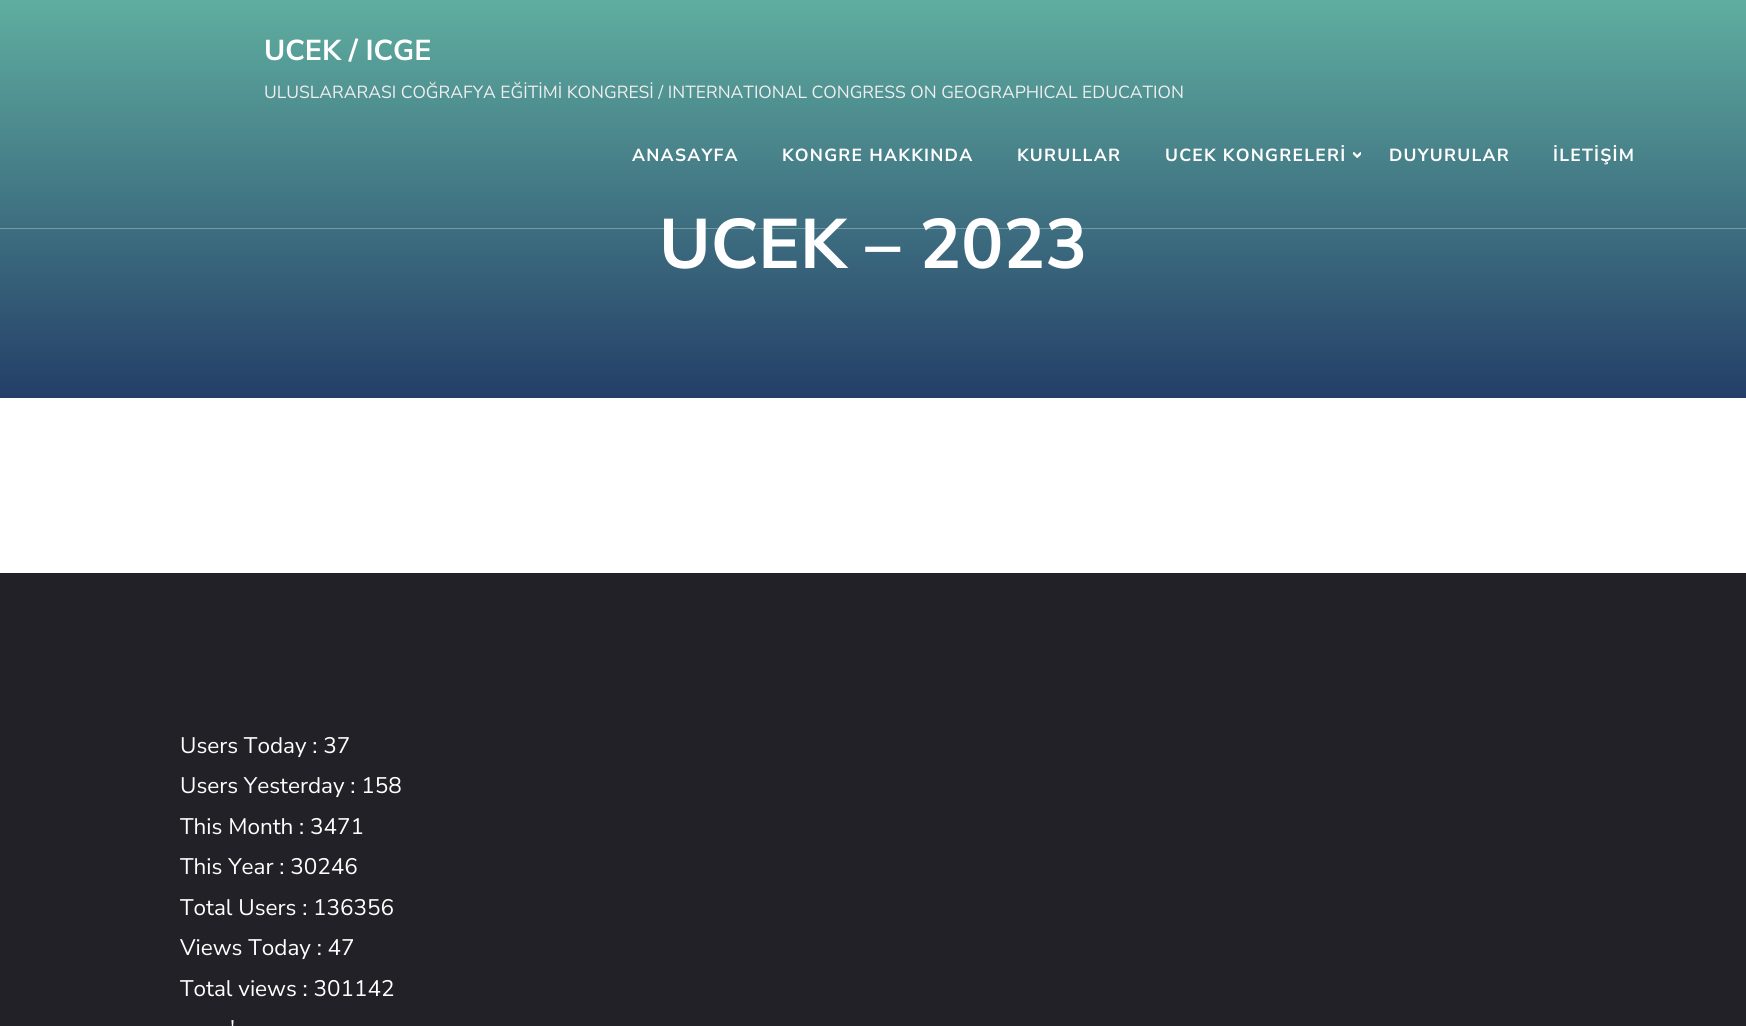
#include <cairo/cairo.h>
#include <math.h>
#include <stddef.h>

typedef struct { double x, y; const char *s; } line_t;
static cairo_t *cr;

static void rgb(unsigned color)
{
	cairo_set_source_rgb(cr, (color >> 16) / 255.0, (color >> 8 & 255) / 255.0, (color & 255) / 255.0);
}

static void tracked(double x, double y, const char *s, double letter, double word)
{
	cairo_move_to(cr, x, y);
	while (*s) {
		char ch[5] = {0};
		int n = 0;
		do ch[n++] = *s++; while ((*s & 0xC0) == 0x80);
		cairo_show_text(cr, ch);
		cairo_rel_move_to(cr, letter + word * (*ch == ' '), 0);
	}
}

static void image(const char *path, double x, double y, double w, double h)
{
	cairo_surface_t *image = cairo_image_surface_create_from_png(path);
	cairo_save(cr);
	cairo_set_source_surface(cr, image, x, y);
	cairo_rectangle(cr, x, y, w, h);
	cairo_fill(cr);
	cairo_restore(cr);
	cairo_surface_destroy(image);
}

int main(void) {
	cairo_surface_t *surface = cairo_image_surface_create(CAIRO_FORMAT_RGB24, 1746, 1026);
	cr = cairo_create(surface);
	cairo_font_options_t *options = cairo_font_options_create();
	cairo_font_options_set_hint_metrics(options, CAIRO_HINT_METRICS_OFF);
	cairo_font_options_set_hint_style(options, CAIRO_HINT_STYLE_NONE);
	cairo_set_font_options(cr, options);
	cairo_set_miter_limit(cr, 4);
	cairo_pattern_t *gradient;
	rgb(0xffffff);
	cairo_paint(cr);
	gradient = cairo_pattern_create_linear(873, 0, 873, 398);
	cairo_pattern_add_color_stop_rgba(gradient, 0, 0.373, 0.682, 0.627, 1);
	cairo_pattern_add_color_stop_rgba(gradient, 1, 0.141, 0.243, 0.408, 1);
	cairo_set_source(cr, gradient);
	cairo_pattern_destroy(gradient);
	cairo_rectangle(cr, 0, 0, 1746, 398);
	cairo_fill(cr);
	image("img/1.png", 1353, 152, 8, 6);
	rgb(0x212127);
	cairo_rectangle(cr, 0, 573, 1746, 453);
	cairo_fill(cr);
	cairo_select_font_face(cr, "Nunito Sans", CAIRO_FONT_SLANT_NORMAL, CAIRO_FONT_WEIGHT_BOLD);
	cairo_set_font_size(cr, 28.75);
	rgb(0xffffff);
	cairo_move_to(cr, 264, 60);
	cairo_show_text(cr, "UCEK / ICGE");
	cairo_select_font_face(cr, "Nunito Sans", CAIRO_FONT_SLANT_NORMAL, CAIRO_FONT_WEIGHT_NORMAL);
	cairo_set_font_size(cr, 17.5);
	rgb(0xeeeeee);
	cairo_move_to(cr, 264, 98);
	cairo_show_text(cr, "ULUSLARARASI COĞRAFYA EĞİTİMİ KONGRESİ / INTERNATIONAL CONGRESS ON GEOGRAPHICAL EDUCATION");
	cairo_select_font_face(cr, "Nunito Sans", CAIRO_FONT_SLANT_NORMAL, CAIRO_FONT_WEIGHT_BOLD);
	rgb(0xffffff);
	{
		static const line_t items[] = {
			{632, 161, "ANASAYFA"},
			{782, 161, "KONGRE HAKKINDA"},
			{1017, 161, "KURULLAR"},
			{1165, 161, "UCEK KONGRELERİ"},
			{1389, 161, "DUYURULAR"},
			{1553, 161, "İLETİŞİM"},
		};
		for (size_t i = 0; i < sizeof items / sizeof *items; i++) {
			tracked(items[i].x, items[i].y, items[i].s, 1.25, 0);
		}
	}
	cairo_set_font_size(cr, 70);
	cairo_move_to(cr, 659, 268);
	cairo_show_text(cr, "UCEK – 2023");
	cairo_set_source_rgba(cr, 1, 1, 1, 0.3);
	cairo_rectangle(cr, 0, 228, 1746, 1);
	cairo_fill(cr);
	cairo_select_font_face(cr, "Nunito Sans", CAIRO_FONT_SLANT_NORMAL, CAIRO_FONT_WEIGHT_NORMAL);
	cairo_set_font_size(cr, 22.5);
	rgb(0xffffff);
	{
		static const line_t items[] = {
			{180, 753, "Users Today : 37"},
			{180, 793, "Users Yesterday : 158"},
			{180, 834, "This Month : 3471"},
			{180, 874, "This Year : 30246"},
			{180, 915, "Total Users : 136356"},
			{180, 955, "Views Today : 47"},
			{180, 996, "Total views : 301142"},
			{230, 1036, "'"},
		};
		for (size_t i = 0; i < sizeof items / sizeof *items; i++) {
			cairo_move_to(cr, items[i].x, items[i].y);
			cairo_show_text(cr, items[i].s);
		}
	}
	cairo_surface_write_to_png(surface, "page.png");
	cairo_font_options_destroy(options);
	cairo_destroy(cr);
	cairo_surface_destroy(surface);
	return 0;
}
